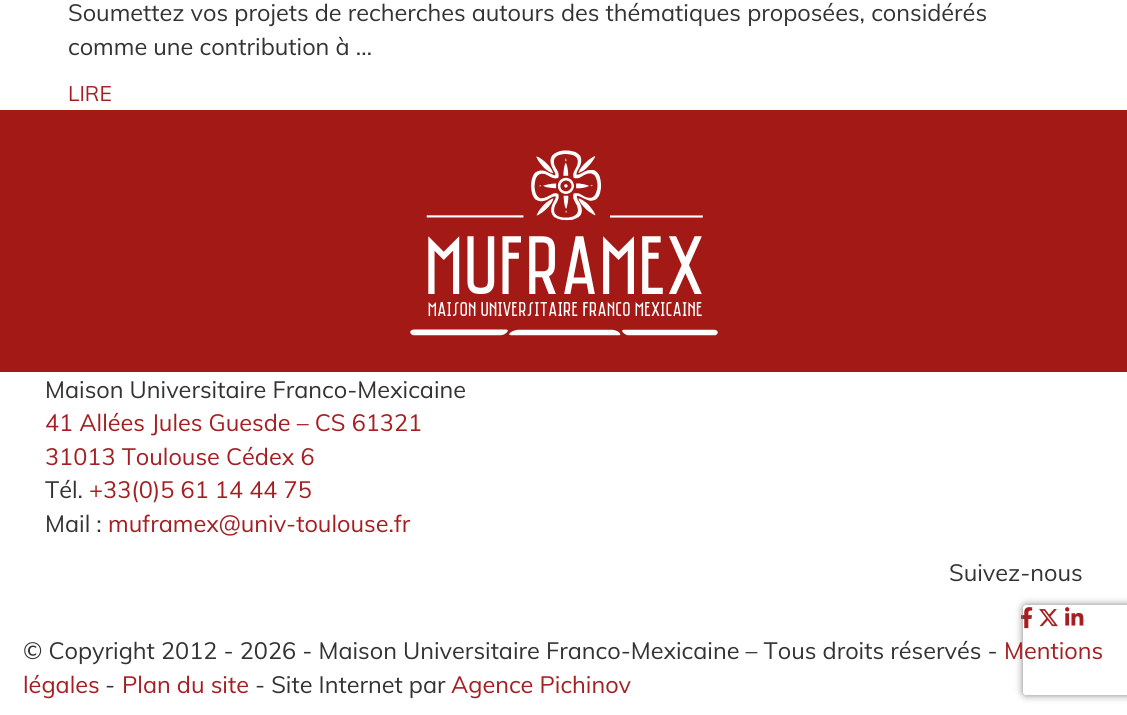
#include <cairo/cairo.h>
#include <math.h>
#include <stddef.h>

static cairo_t *cr;

static void rgb(unsigned color)
{
	cairo_set_source_rgb(cr, (color >> 16) / 255.0, (color >> 8 & 255) / 255.0, (color & 255) / 255.0);
}

static void rrect(double x, double y, double w, double h, double r)
{
	cairo_new_sub_path(cr);
	cairo_arc(cr, x + w - r, y + h - r, r, 0, M_PI / 2);
	cairo_arc(cr, x + r, y + h - r, r, M_PI / 2, M_PI);
	cairo_arc(cr, x + r, y + r, r, M_PI, 1.5 * M_PI);
	cairo_arc(cr, x + w - r, y + r, r, 1.5 * M_PI, 2 * M_PI);
	cairo_close_path(cr);
}

static void soft_shadow(double x, double y, double w, double h, double r, double blur, double alpha)
{
	cairo_push_group_with_content(cr, CAIRO_CONTENT_ALPHA);
	cairo_set_operator(cr, CAIRO_OPERATOR_SOURCE);
	for (int i = 15; i >= -15 && fmin(w, h) + blur * i / 3 > 0; i -= 2) {
		double e = blur * i / 6;
		cairo_set_source_rgba(cr, 0, 0, 0, alpha * erfc((i - 1) / 8.5) / 2);
		rrect(x - e, y - e, w + 2 * e, h + 2 * e, fmax(0, fmin(r + e + blur * .6, fmin(w, h) / 2 + e)));
		cairo_fill(cr);
	}
	cairo_pattern_t *soft = cairo_pop_group(cr);
	cairo_mask(cr, soft);
	cairo_pattern_destroy(soft);
}

static void image(const char *path, double x, double y, double w, double h)
{
	cairo_surface_t *image = cairo_image_surface_create_from_png(path);
	cairo_save(cr);
	cairo_set_source_surface(cr, image, x, y);
	cairo_rectangle(cr, x, y, w, h);
	cairo_fill(cr);
	cairo_restore(cr);
	cairo_surface_destroy(image);
}

int main(void) {
	cairo_surface_t *surface = cairo_image_surface_create(CAIRO_FORMAT_RGB24, 1127, 715);
	cr = cairo_create(surface);
	cairo_font_options_t *options = cairo_font_options_create();
	cairo_font_options_set_hint_metrics(options, CAIRO_HINT_METRICS_OFF);
	cairo_font_options_set_hint_style(options, CAIRO_HINT_STYLE_NONE);
	cairo_set_font_options(cr, options);
	cairo_set_miter_limit(cr, 4);
	rgb(0xffffff);
	cairo_paint(cr);
	rgb(0xa21915);
	cairo_rectangle(cr, 0, 110, 1127, 262);
	cairo_fill(cr);
	image("img/1.png", 410, 150, 308, 186);
	image("img/2.png", 1020, 607, 13, 22);
	image("img/3.png", 1039, 609, 19, 18);
	image("img/4.png", 1065, 607, 19, 19);
	cairo_save(cr);
	cairo_set_fill_rule(cr, CAIRO_FILL_RULE_EVEN_ODD);
	cairo_new_path(cr);
	cairo_move_to(cr, 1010, 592);
	cairo_line_to(cr, 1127, 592);
	cairo_line_to(cr, 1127, 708);
	cairo_line_to(cr, 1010, 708);
	cairo_close_path(cr);
	cairo_move_to(cr, 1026, 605);
	cairo_line_to(cr, 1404, 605);
	cairo_curve_to(cr, 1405.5, 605, 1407, 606.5, 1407, 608);
	cairo_line_to(cr, 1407, 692);
	cairo_curve_to(cr, 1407, 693.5, 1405.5, 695, 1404, 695);
	cairo_line_to(cr, 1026, 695);
	cairo_curve_to(cr, 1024.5, 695, 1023, 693.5, 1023, 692);
	cairo_line_to(cr, 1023, 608);
	cairo_curve_to(cr, 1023, 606.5, 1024.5, 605, 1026, 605);
	cairo_close_path(cr);
	cairo_clip(cr);
	rgb(0x808080);
	soft_shadow(1023, 605, 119, 90, 3, 4, 1);
	cairo_restore(cr);
	cairo_select_font_face(cr, "Muli", CAIRO_FONT_SLANT_NORMAL, CAIRO_FONT_WEIGHT_NORMAL);
	cairo_set_font_size(cr, 23.5);
	rgb(0x333333);
	cairo_move_to(cr, 68, 21);
	cairo_show_text(cr, "Soumettez vos projets de recherches autours des thématiques proposées, considérés");
	cairo_move_to(cr, 68, 55);
	cairo_show_text(cr, "comme une contribution à …");
	cairo_set_font_size(cr, 21);
	rgb(0xa51e22);
	cairo_move_to(cr, 68, 101);
	cairo_show_text(cr, "LIRE");
	cairo_set_font_size(cr, 23.5);
	rgb(0x333333);
	cairo_move_to(cr, 45, 398);
	cairo_show_text(cr, "Maison Universitaire Franco-Mexicaine");
	rgb(0xa51e22);
	cairo_move_to(cr, 45, 431);
	cairo_show_text(cr, "41 Allées Jules Guesde – CS 61321");
	cairo_move_to(cr, 45, 465);
	cairo_show_text(cr, "31013 Toulouse Cédex 6");
	rgb(0x333333);
	cairo_move_to(cr, 45, 498);
	cairo_show_text(cr, "Tél.");
	rgb(0xa51e22);
	cairo_move_to(cr, 89, 498);
	cairo_show_text(cr, "+33(0)5 61 14 44 75");
	rgb(0x333333);
	cairo_move_to(cr, 45, 532);
	cairo_show_text(cr, "Mail :");
	rgb(0xa51e22);
	cairo_move_to(cr, 108, 532);
	cairo_show_text(cr, "muframex@univ-toulouse.fr");
	rgb(0x333333);
	cairo_move_to(cr, 949, 581);
	cairo_show_text(cr, "Suivez-nous");
	cairo_move_to(cr, 23, 659);
	cairo_show_text(cr, "© Copyright 2012 - 2026 - Maison Universitaire Franco-Mexicaine – Tous droits réservés -");
	rgb(0xa51e22);
	cairo_move_to(cr, 1004, 659);
	cairo_show_text(cr, "Mentions");
	cairo_move_to(cr, 23, 693);
	cairo_show_text(cr, "légales");
	rgb(0x333333);
	cairo_move_to(cr, 105, 693);
	cairo_show_text(cr, "-");
	rgb(0xa51e22);
	cairo_move_to(cr, 122, 693);
	cairo_show_text(cr, "Plan du site");
	rgb(0x333333);
	cairo_move_to(cr, 255, 693);
	cairo_show_text(cr, "- Site Internet par");
	rgb(0xa51e22);
	cairo_move_to(cr, 451, 693);
	cairo_show_text(cr, "Agence Pichinov");
	cairo_surface_write_to_png(surface, "page.png");
	cairo_font_options_destroy(options);
	cairo_destroy(cr);
	cairo_surface_destroy(surface);
	return 0;
}
